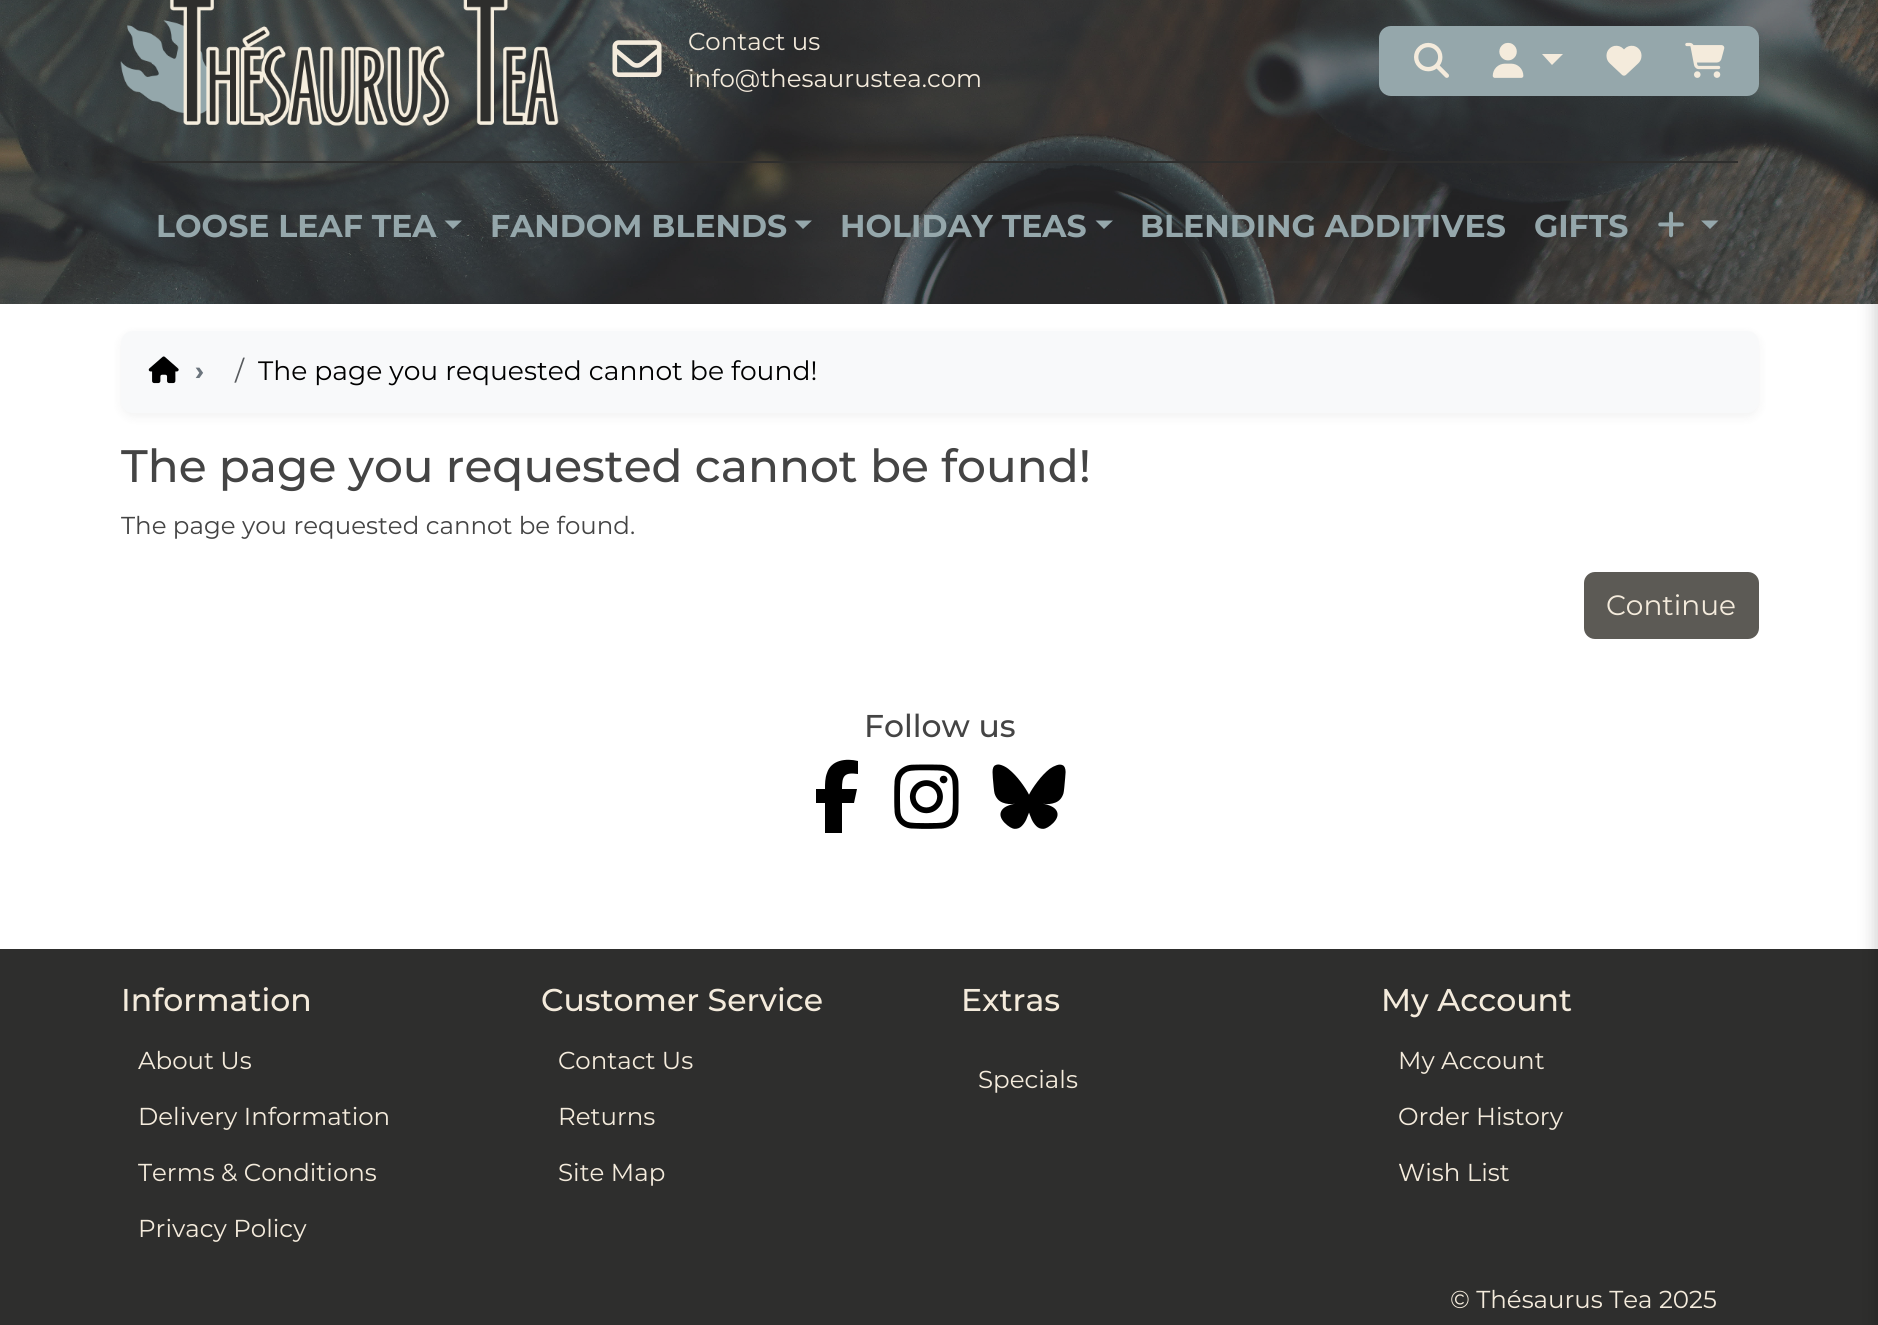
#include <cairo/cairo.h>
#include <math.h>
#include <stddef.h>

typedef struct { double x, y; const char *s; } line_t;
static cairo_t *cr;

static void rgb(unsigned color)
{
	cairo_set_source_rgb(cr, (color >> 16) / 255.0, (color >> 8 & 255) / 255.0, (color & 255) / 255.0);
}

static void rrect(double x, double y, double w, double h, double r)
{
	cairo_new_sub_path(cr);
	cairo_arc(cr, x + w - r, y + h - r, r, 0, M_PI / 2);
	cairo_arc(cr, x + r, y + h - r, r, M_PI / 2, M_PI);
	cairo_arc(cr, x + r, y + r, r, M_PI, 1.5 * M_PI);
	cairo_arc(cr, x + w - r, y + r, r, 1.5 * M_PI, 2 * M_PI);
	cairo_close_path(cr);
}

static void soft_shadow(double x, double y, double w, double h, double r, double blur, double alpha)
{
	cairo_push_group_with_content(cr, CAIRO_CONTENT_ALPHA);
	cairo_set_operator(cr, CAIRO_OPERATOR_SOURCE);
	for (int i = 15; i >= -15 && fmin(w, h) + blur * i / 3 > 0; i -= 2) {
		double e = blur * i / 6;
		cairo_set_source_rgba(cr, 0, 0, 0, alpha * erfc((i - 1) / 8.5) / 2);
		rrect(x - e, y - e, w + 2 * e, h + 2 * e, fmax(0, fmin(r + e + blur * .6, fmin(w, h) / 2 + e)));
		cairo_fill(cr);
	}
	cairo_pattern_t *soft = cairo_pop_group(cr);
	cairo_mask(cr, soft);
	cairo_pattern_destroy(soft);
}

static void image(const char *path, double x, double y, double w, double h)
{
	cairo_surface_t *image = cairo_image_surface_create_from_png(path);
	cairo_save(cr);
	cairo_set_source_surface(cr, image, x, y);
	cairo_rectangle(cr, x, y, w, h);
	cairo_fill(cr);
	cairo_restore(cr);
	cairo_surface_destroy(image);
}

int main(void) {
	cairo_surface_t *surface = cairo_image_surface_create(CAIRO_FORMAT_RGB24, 1878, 1325);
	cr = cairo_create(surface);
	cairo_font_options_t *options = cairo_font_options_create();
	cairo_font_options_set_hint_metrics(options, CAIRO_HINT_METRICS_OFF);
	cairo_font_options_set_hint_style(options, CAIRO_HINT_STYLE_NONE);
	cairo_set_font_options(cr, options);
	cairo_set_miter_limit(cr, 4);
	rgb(0xffffff);
	cairo_paint(cr);
	image("img/1.png", 0, 0, 1878, 304);
	image("img/2.png", 120, 0, 439, 126);
	image("img/3.png", 612, 40, 50, 37);
	rgb(0x95a7ab);
	rrect(1379, 26, 380, 70, 12);
	cairo_fill(cr);
	image("img/4.png", 1414, 42, 35, 36);
	image("img/5.png", 1492, 42, 32, 36);
	rgb(0xf4ebdc);
	cairo_new_path(cr);
	cairo_move_to(cr, 1542, 54);
	cairo_line_to(cr, 1563, 54);
	cairo_line_to(cr, 1552, 65);
	cairo_close_path(cr);
	cairo_fill(cr);
	image("img/6.png", 1606, 45, 36, 31);
	image("img/7.png", 1685, 42, 40, 36);
	rgb(0x2e2e2d);
	cairo_rectangle(cr, 142, 161, 1596, 2);
	cairo_fill(cr);
	rgb(0x95a7ab);
	cairo_new_path(cr);
	cairo_move_to(cr, 444.5, 220.5);
	cairo_line_to(cr, 462, 220.5);
	cairo_line_to(cr, 453, 229);
	cairo_close_path(cr);
	cairo_fill(cr);
	cairo_new_path(cr);
	cairo_move_to(cr, 794.5, 220.5);
	cairo_line_to(cr, 812, 220.5);
	cairo_line_to(cr, 803, 229);
	cairo_close_path(cr);
	cairo_fill(cr);
	cairo_new_path(cr);
	cairo_move_to(cr, 1095.5, 220.5);
	cairo_line_to(cr, 1113, 220.5);
	cairo_line_to(cr, 1104, 229);
	cairo_close_path(cr);
	cairo_fill(cr);
	image("img/8.png", 1658, 211, 26, 27);
	cairo_new_path(cr);
	cairo_move_to(cr, 1701, 220.5);
	cairo_line_to(cr, 1718.5, 220.5);
	cairo_line_to(cr, 1710, 229);
	cairo_close_path(cr);
	cairo_fill(cr);
	rgb(0x2e2e2d);
	cairo_rectangle(cr, 0, 949, 1878, 376);
	cairo_fill(cr);
	rgb(0x000000);
	soft_shadow(1876, 0, 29, 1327, 0, 9, 0.2);
	soft_shadow(121, 334, 1638, 83, 12, 5, 0.05);
	rgb(0xf8f9fa);
	rrect(121, 331, 1638, 82, 12);
	cairo_fill(cr);
	image("img/9.png", 148, 356, 31, 28);
	rgb(0x5c5a55);
	rrect(1585, 573, 173, 65, 10);
	cairo_fill_preserve(cr);
	cairo_stroke(cr);
	rgb(0x000000);
	cairo_new_path(cr);
	cairo_move_to(cr, 825, 803);
	cairo_line_to(cr, 825, 833);
	cairo_line_to(cr, 825, 803);
	cairo_line_to(cr, 825, 833);
	cairo_line_to(cr, 842, 833);
	cairo_line_to(cr, 842, 803);
	cairo_line_to(cr, 854, 803);
	cairo_line_to(cr, 857, 789);
	cairo_line_to(cr, 842, 789);
	cairo_curve_to(cr, 842, 776, 844, 772, 858, 774);
	cairo_line_to(cr, 858, 761);
	cairo_curve_to(cr, 846, 758, 831, 760, 827, 773);
	cairo_curve_to(cr, 825, 778, 825, 784, 825, 789);
	cairo_line_to(cr, 816, 789);
	cairo_line_to(cr, 816, 803);
	cairo_close_path(cr);
	cairo_fill(cr);
	image("img/10.png", 894, 764, 65, 65);
	image("img/11.png", 992, 764, 74, 65);
	cairo_select_font_face(cr, "Montserrat", CAIRO_FONT_SLANT_NORMAL, CAIRO_FONT_WEIGHT_NORMAL);
	cairo_set_font_size(cr, 24.5);
	rgb(0xf4ebdc);
	cairo_move_to(cr, 688, 50);
	cairo_show_text(cr, "Contact us");
	cairo_move_to(cr, 688, 87);
	cairo_show_text(cr, "info@thesaurustea.com");
	cairo_select_font_face(cr, "Montserrat", CAIRO_FONT_SLANT_NORMAL, CAIRO_FONT_WEIGHT_BOLD);
	cairo_set_font_size(cr, 31.5);
	rgb(0x95a7ab);
	{
		static const line_t items[] = {
			{156, 237, "LOOSE LEAF TEA"},
			{490, 237, "FANDOM BLENDS"},
			{840, 237, "HOLIDAY TEAS"},
			{1140, 237, "BLENDING ADDITIVES"},
			{1534, 237, "GIFTS"},
		};
		for (size_t i = 0; i < sizeof items / sizeof *items; i++) {
			cairo_move_to(cr, items[i].x, items[i].y);
			cairo_show_text(cr, items[i].s);
		}
	}
	cairo_set_font_size(cr, 26.6);
	rgb(0x6c757d);
	cairo_move_to(cr, 195, 380);
	cairo_show_text(cr, "›");
	cairo_select_font_face(cr, "Montserrat", CAIRO_FONT_SLANT_NORMAL, CAIRO_FONT_WEIGHT_NORMAL);
	rgb(0x575a5d);
	cairo_move_to(cr, 235, 380);
	cairo_show_text(cr, "/");
	rgb(0x000000);
	cairo_move_to(cr, 258, 380);
	cairo_show_text(cr, "The page you requested cannot be found!");
	cairo_select_font_face(cr, "Montserrat Medium", CAIRO_FONT_SLANT_NORMAL, CAIRO_FONT_WEIGHT_NORMAL);
	cairo_set_font_size(cr, 45.5);
	rgb(0x444444);
	cairo_move_to(cr, 121, 482);
	cairo_show_text(cr, "The page you requested cannot be found!");
	cairo_select_font_face(cr, "Montserrat", CAIRO_FONT_SLANT_NORMAL, CAIRO_FONT_WEIGHT_NORMAL);
	cairo_set_font_size(cr, 24.5);
	cairo_move_to(cr, 121, 534);
	cairo_show_text(cr, "The page you requested cannot be found.");
	cairo_set_font_size(cr, 28);
	rgb(0xf4ebdc);
	cairo_move_to(cr, 1606, 615);
	cairo_show_text(cr, "Continue");
	cairo_select_font_face(cr, "Montserrat Medium", CAIRO_FONT_SLANT_NORMAL, CAIRO_FONT_WEIGHT_NORMAL);
	cairo_set_font_size(cr, 31.5);
	rgb(0x444444);
	cairo_move_to(cr, 864, 737);
	cairo_show_text(cr, "Follow us");
	rgb(0xf4ebdc);
	cairo_move_to(cr, 121, 1011);
	cairo_show_text(cr, "Information");
	cairo_select_font_face(cr, "Montserrat", CAIRO_FONT_SLANT_NORMAL, CAIRO_FONT_WEIGHT_NORMAL);
	cairo_set_font_size(cr, 24.5);
	{
		static const line_t items[] = {
			{138, 1069, "About Us"},
			{138, 1125, "Delivery Information"},
			{138, 1181, "Terms & Conditions"},
			{138, 1237, "Privacy Policy"},
		};
		for (size_t i = 0; i < sizeof items / sizeof *items; i++) {
			cairo_move_to(cr, items[i].x, items[i].y);
			cairo_show_text(cr, items[i].s);
		}
	}
	cairo_select_font_face(cr, "Montserrat Medium", CAIRO_FONT_SLANT_NORMAL, CAIRO_FONT_WEIGHT_NORMAL);
	cairo_set_font_size(cr, 31.5);
	cairo_move_to(cr, 541, 1011);
	cairo_show_text(cr, "Customer Service");
	cairo_select_font_face(cr, "Montserrat", CAIRO_FONT_SLANT_NORMAL, CAIRO_FONT_WEIGHT_NORMAL);
	cairo_set_font_size(cr, 24.5);
	{
		static const line_t items[] = {
			{558, 1069, "Contact Us"},
			{558, 1125, "Returns"},
			{558, 1181, "Site Map"},
		};
		for (size_t i = 0; i < sizeof items / sizeof *items; i++) {
			cairo_move_to(cr, items[i].x, items[i].y);
			cairo_show_text(cr, items[i].s);
		}
	}
	cairo_select_font_face(cr, "Montserrat Medium", CAIRO_FONT_SLANT_NORMAL, CAIRO_FONT_WEIGHT_NORMAL);
	cairo_set_font_size(cr, 31.5);
	cairo_move_to(cr, 961, 1011);
	cairo_show_text(cr, "Extras");
	cairo_select_font_face(cr, "Montserrat", CAIRO_FONT_SLANT_NORMAL, CAIRO_FONT_WEIGHT_NORMAL);
	cairo_set_font_size(cr, 24.5);
	cairo_move_to(cr, 978, 1088);
	cairo_show_text(cr, "Specials");
	cairo_select_font_face(cr, "Montserrat Medium", CAIRO_FONT_SLANT_NORMAL, CAIRO_FONT_WEIGHT_NORMAL);
	cairo_set_font_size(cr, 31.5);
	cairo_move_to(cr, 1381, 1011);
	cairo_show_text(cr, "My Account");
	cairo_select_font_face(cr, "Montserrat", CAIRO_FONT_SLANT_NORMAL, CAIRO_FONT_WEIGHT_NORMAL);
	cairo_set_font_size(cr, 24.5);
	{
		static const line_t items[] = {
			{1398, 1069, "My Account"},
			{1398, 1125, "Order History"},
			{1398, 1181, "Wish List"},
			{1450, 1308, "© Thésaurus Tea 2025"},
		};
		for (size_t i = 0; i < sizeof items / sizeof *items; i++) {
			cairo_move_to(cr, items[i].x, items[i].y);
			cairo_show_text(cr, items[i].s);
		}
	}
	cairo_surface_write_to_png(surface, "page.png");
	cairo_font_options_destroy(options);
	cairo_destroy(cr);
	cairo_surface_destroy(surface);
	return 0;
}
